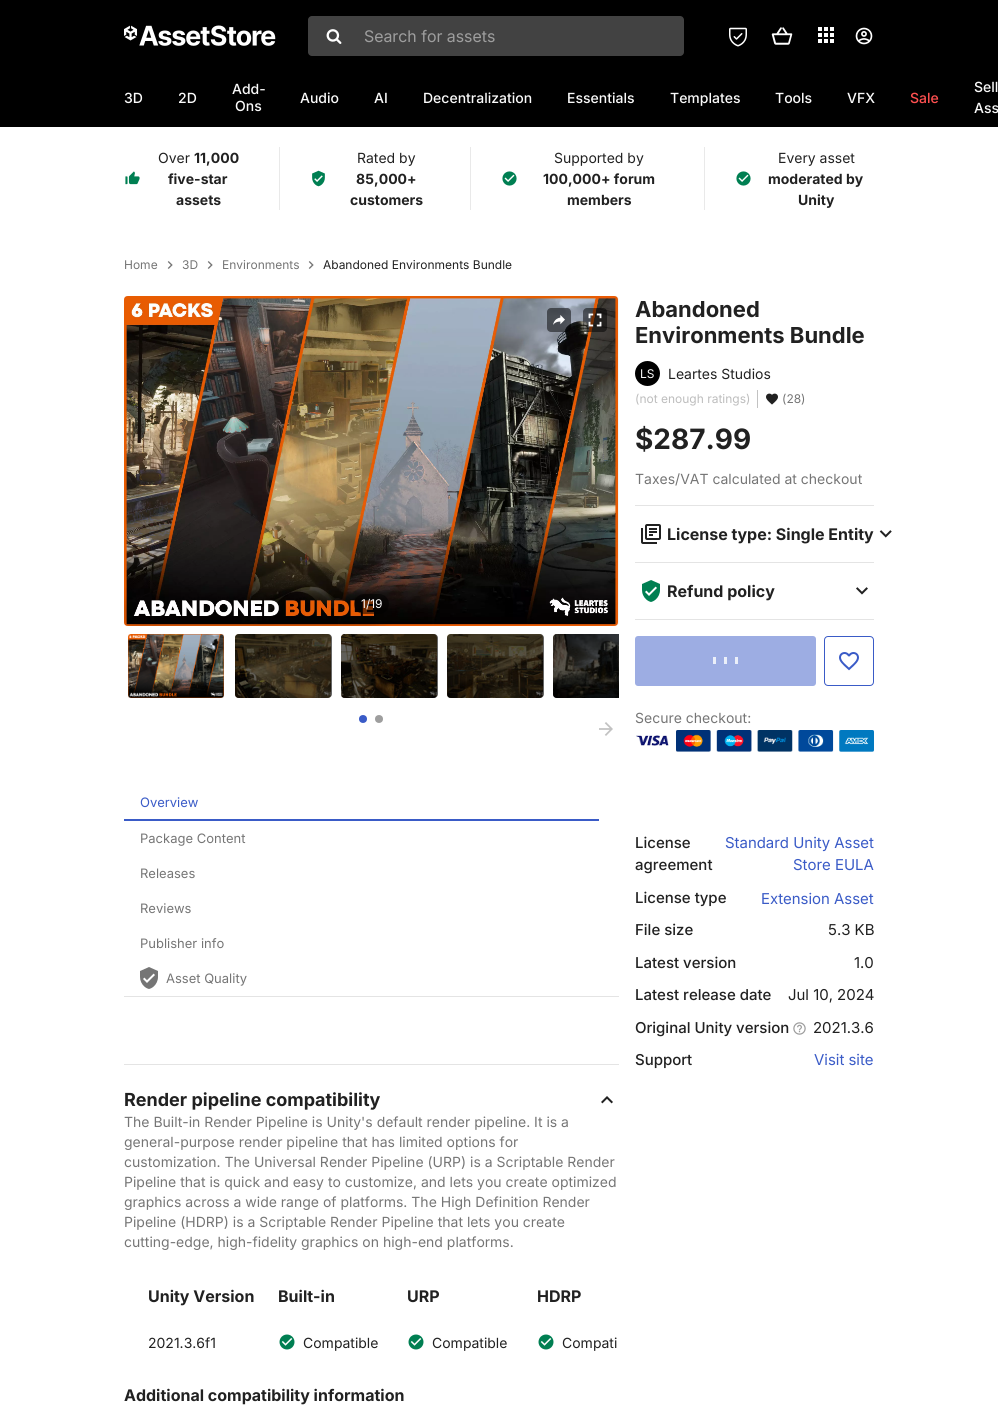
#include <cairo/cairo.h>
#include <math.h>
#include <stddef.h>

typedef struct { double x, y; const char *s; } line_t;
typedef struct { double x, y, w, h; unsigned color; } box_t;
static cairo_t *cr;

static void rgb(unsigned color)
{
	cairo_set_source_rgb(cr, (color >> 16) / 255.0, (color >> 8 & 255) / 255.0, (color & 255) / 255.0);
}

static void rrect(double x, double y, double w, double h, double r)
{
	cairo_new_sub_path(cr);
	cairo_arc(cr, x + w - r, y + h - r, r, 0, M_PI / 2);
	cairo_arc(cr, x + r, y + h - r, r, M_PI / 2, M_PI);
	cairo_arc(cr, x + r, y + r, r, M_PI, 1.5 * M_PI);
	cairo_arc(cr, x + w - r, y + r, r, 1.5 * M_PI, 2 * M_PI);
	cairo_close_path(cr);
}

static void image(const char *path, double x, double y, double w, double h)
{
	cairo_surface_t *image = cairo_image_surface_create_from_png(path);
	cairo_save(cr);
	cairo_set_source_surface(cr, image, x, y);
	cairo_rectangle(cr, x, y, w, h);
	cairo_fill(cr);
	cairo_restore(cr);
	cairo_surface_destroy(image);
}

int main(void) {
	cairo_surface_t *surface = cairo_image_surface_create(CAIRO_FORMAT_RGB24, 998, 1406);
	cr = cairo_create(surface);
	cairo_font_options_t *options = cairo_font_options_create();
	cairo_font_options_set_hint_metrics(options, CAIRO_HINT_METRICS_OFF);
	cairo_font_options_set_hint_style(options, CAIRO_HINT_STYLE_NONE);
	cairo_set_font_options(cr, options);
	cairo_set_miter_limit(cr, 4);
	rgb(0xffffff);
	cairo_paint(cr);
	rgb(0x000000);
	cairo_rectangle(cr, 0, 0, 998, 127);
	cairo_fill(cr);
	image("img/1.png", 124, 25, 152, 21);
	rgb(0x424242);
	rrect(308, 16, 376, 40, 4);
	cairo_fill(cr);
	image("img/2.png", 326, 29, 16, 15);
	image("img/3.png", 729, 27, 18, 20);
	image("img/4.png", 771, 27, 22, 18);
	image("img/5.png", 818, 27, 16, 16);
	image("img/6.png", 855, 27, 18, 18);
	image("img/7.png", 125, 171, 15, 14);
	rgb(0xe9e9e9);
	cairo_rectangle(cr, 470, 147, 1, 63);
	cairo_fill(cr);
	cairo_rectangle(cr, 279, 147, 1, 63);
	cairo_fill(cr);
	image("img/8.png", 312, 170, 13, 17);
	cairo_rectangle(cr, 704, 147, 1, 63);
	cairo_fill(cr);
	image("img/9.png", 502, 171, 15, 15);
	image("img/9.png", 736, 171, 15, 15);
	image("img/10.png", 167, 261, 6, 8);
	image("img/10.png", 207, 261, 6, 8);
	image("img/10.png", 308, 261, 6, 8);
	rgb(0xf5f5f5);
	rrect(124, 296, 495, 330, 4);
	cairo_fill(cr);
	image("img/13.png", 124, 296, 494, 330);
	cairo_set_source_rgba(cr, 0, 0, 0, 0.5);
	rrect(547, 308, 24, 24, 4);
	cairo_fill(cr);
	image("img/11.png", 553, 315, 12, 10);
	rrect(583, 308, 24, 24, 4);
	cairo_fill(cr);
	image("img/12.png", 588, 313, 14, 14);
	rrect(354, 594, 35, 20, 10);
	cairo_fill(cr);
	image("img/14.png", 128, 634, 96, 64);
	rrect(127.5, 633.5, 97, 65, 3.5);
	rgb(0xffffff);
	cairo_set_line_width(cr, 1);
	cairo_stroke(cr);
	image("img/15.png", 235, 634, 96, 64);
	cairo_set_source_rgba(cr, 0, 0, 0, 0.6);
	rrect(235, 634, 97, 64, 4);
	cairo_fill(cr);
	image("img/16.png", 341, 634, 96, 64);
	rrect(341, 634, 97, 64, 4);
	cairo_fill(cr);
	image("img/17.png", 447, 634, 96, 64);
	rrect(447, 634, 97, 64, 4);
	cairo_fill(cr);
	image("img/18.png", 553, 634, 66, 64);
	cairo_new_path(cr);
	cairo_move_to(cr, 557, 634);
	cairo_line_to(cr, 619, 634);
	cairo_line_to(cr, 619, 698);
	cairo_line_to(cr, 557, 698);
	cairo_curve_to(cr, 555, 698, 553, 696, 553, 694);
	cairo_line_to(cr, 553, 638);
	cairo_curve_to(cr, 553, 636, 555, 634, 557, 634);
	cairo_close_path(cr);
	cairo_fill(cr);
	rgb(0x3a5bc7);
	cairo_arc(cr, 363, 719, 4, 0, 2 * M_PI);
	cairo_fill(cr);
	rgb(0x9e9e9e);
	cairo_arc(cr, 379, 719, 4, 0, 2 * M_PI);
	cairo_fill(cr);
	image("img/19.png", 599, 722, 14, 14);
	rgb(0xe4e4e4);
	cairo_rectangle(cr, 124, 996, 495, 1);
	cairo_fill(cr);
	rgb(0x3a5bc7);
	cairo_rectangle(cr, 124, 819, 475, 2);
	cairo_fill(cr);
	image("img/20.png", 140, 967, 18, 22);
	rgb(0xe4e4e4);
	cairo_rectangle(cr, 124, 1064, 495, 1);
	cairo_fill(cr);
	image("img/21.png", 601, 1096, 12, 8);
	image("img/22.png", 279, 1334, 16, 16);
	image("img/22.png", 408, 1334, 16, 16);
	image("img/22.png", 538, 1334, 16, 16);
	rgb(0x000000);
	cairo_arc(cr, 647.5, 373.5, 12.5, 0, 2 * M_PI);
	cairo_fill(cr);
	rgb(0xc2c2c2);
	cairo_rectangle(cr, 757, 390, 1, 18);
	cairo_fill(cr);
	image("img/23.png", 766, 393, 12, 12);
	rgb(0xe4e4e4);
	cairo_rectangle(cr, 635, 505, 239, 1);
	cairo_fill(cr);
	image("img/24.png", 641, 524, 20, 20);
	image("img/25.png", 879, 530, 13, 8);
	cairo_rectangle(cr, 635, 562, 239, 1);
	cairo_fill(cr);
	cairo_rectangle(cr, 635, 619, 239, 1);
	cairo_fill(cr);
	image("img/26.png", 642, 580, 18, 22);
	image("img/27.png", 856, 587, 12, 8);
	rgb(0x9dade3);
	rrect(635, 636, 181, 50, 3);
	cairo_fill(cr);
	{
		static const box_t items[] = {
			{713, 657, 3, 7, 0xebeff9},
			{724, 657, 3, 7, 0xebeff9},
			{735, 657, 3, 7, 0xebeff9},
		};
		for (size_t i = 0; i < sizeof items / sizeof *items; i++) {
			rgb(items[i].color);
			cairo_rectangle(cr, items[i].x, items[i].y, items[i].w, items[i].h);
			cairo_fill(cr);
		}
	}
	rrect(824.5, 636.5, 49, 49, 3.5);
	rgb(0x3a5bc7);
	cairo_stroke(cr);
	image("img/28.png", 839, 652, 20, 19);
	image("img/29.png", 636, 730, 238, 22);
	image("img/30.png", 793, 1022, 13, 13);
	cairo_select_font_face(cr, "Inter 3", CAIRO_FONT_SLANT_NORMAL, CAIRO_FONT_WEIGHT_NORMAL);
	cairo_set_font_size(cr, 16);
	rgb(0x9e9e9e);
	cairo_move_to(cr, 364, 42);
	cairo_show_text(cr, "Search for assets");
	cairo_select_font_face(cr, "Inter Medium", CAIRO_FONT_SLANT_NORMAL, CAIRO_FONT_WEIGHT_NORMAL);
	cairo_set_font_size(cr, 14);
	rgb(0xfafafa);
	{
		static const line_t items[] = {
			{124, 103, "3D"},
			{178, 103, "2D"},
			{232, 94, "Add-"},
			{235, 111, "Ons"},
			{300, 103, "Audio"},
			{374, 103, "AI"},
			{423, 103, "Decentralization"},
			{567, 103, "Essentials"},
			{670, 103, "Templates"},
			{775, 103, "Tools"},
			{847, 103, "VFX"},
		};
		for (size_t i = 0; i < sizeof items / sizeof *items; i++) {
			cairo_move_to(cr, items[i].x, items[i].y);
			cairo_show_text(cr, items[i].s);
		}
	}
	rgb(0xff5050);
	cairo_move_to(cr, 910, 103);
	cairo_show_text(cr, "Sale");
	rgb(0xfafafa);
	cairo_move_to(cr, 974, 92);
	cairo_show_text(cr, "Sell");
	cairo_move_to(cr, 974, 113);
	cairo_show_text(cr, "Ass");
	cairo_select_font_face(cr, "Inter", CAIRO_FONT_SLANT_NORMAL, CAIRO_FONT_WEIGHT_NORMAL);
	rgb(0x212121);
	cairo_move_to(cr, 158, 163);
	cairo_show_text(cr, "Over");
	cairo_select_font_face(cr, "Inter", CAIRO_FONT_SLANT_NORMAL, CAIRO_FONT_WEIGHT_BOLD);
	{
		static const line_t items[] = {
			{194, 163, "11,000"},
			{168, 184, "five-star"},
			{176, 205, "assets"},
		};
		for (size_t i = 0; i < sizeof items / sizeof *items; i++) {
			cairo_move_to(cr, items[i].x, items[i].y);
			cairo_show_text(cr, items[i].s);
		}
	}
	cairo_select_font_face(cr, "Inter", CAIRO_FONT_SLANT_NORMAL, CAIRO_FONT_WEIGHT_NORMAL);
	cairo_move_to(cr, 357, 163);
	cairo_show_text(cr, "Rated by");
	cairo_select_font_face(cr, "Inter", CAIRO_FONT_SLANT_NORMAL, CAIRO_FONT_WEIGHT_BOLD);
	cairo_move_to(cr, 356, 184);
	cairo_show_text(cr, "85,000+");
	cairo_move_to(cr, 350, 205);
	cairo_show_text(cr, "customers");
	cairo_select_font_face(cr, "Inter", CAIRO_FONT_SLANT_NORMAL, CAIRO_FONT_WEIGHT_NORMAL);
	cairo_move_to(cr, 554, 163);
	cairo_show_text(cr, "Supported by");
	cairo_select_font_face(cr, "Inter", CAIRO_FONT_SLANT_NORMAL, CAIRO_FONT_WEIGHT_BOLD);
	cairo_move_to(cr, 543, 184);
	cairo_show_text(cr, "100,000+ forum");
	cairo_move_to(cr, 567, 205);
	cairo_show_text(cr, "members");
	cairo_select_font_face(cr, "Inter", CAIRO_FONT_SLANT_NORMAL, CAIRO_FONT_WEIGHT_NORMAL);
	cairo_move_to(cr, 778, 163);
	cairo_show_text(cr, "Every asset");
	cairo_select_font_face(cr, "Inter", CAIRO_FONT_SLANT_NORMAL, CAIRO_FONT_WEIGHT_BOLD);
	cairo_move_to(cr, 768, 184);
	cairo_show_text(cr, "moderated by");
	cairo_move_to(cr, 798, 205);
	cairo_show_text(cr, "Unity");
	cairo_select_font_face(cr, "Inter", CAIRO_FONT_SLANT_NORMAL, CAIRO_FONT_WEIGHT_NORMAL);
	cairo_set_font_size(cr, 12);
	rgb(0x757575);
	{
		static const line_t items[] = {
			{124, 269, "Home"},
			{182, 269, "3D"},
			{222, 269, "Environments"},
		};
		for (size_t i = 0; i < sizeof items / sizeof *items; i++) {
			cairo_move_to(cr, items[i].x, items[i].y);
			cairo_show_text(cr, items[i].s);
		}
	}
	rgb(0x212121);
	cairo_move_to(cr, 323, 269);
	cairo_show_text(cr, "Abandoned Environments Bundle");
	rgb(0xfafafa);
	cairo_move_to(cr, 361, 608);
	cairo_show_text(cr, "1/19");
	cairo_set_font_size(cr, 13);
	rgb(0x3a5bc7);
	cairo_move_to(cr, 140, 807);
	cairo_show_text(cr, "Overview");
	rgb(0x757575);
	{
		static const line_t items[] = {
			{140, 843, "Package Content"},
			{140, 878, "Releases"},
			{140, 913, "Reviews"},
			{140, 948, "Publisher info"},
			{166, 983, "Asset Quality"},
		};
		for (size_t i = 0; i < sizeof items / sizeof *items; i++) {
			cairo_move_to(cr, items[i].x, items[i].y);
			cairo_show_text(cr, items[i].s);
		}
	}
	cairo_select_font_face(cr, "Inter", CAIRO_FONT_SLANT_NORMAL, CAIRO_FONT_WEIGHT_BOLD);
	cairo_set_font_size(cr, 18);
	rgb(0x212121);
	cairo_move_to(cr, 124, 1106);
	cairo_show_text(cr, "Render pipeline compatibility");
	cairo_select_font_face(cr, "Inter", CAIRO_FONT_SLANT_NORMAL, CAIRO_FONT_WEIGHT_NORMAL);
	cairo_set_font_size(cr, 14);
	rgb(0x757575);
	{
		static const line_t items[] = {
			{124, 1127, "The Built-in Render Pipeline is Unity's default render pipeline. It is a"},
			{124, 1147, "general-purpose render pipeline that has limited options for"},
			{124, 1167, "customization. The Universal Render Pipeline (URP) is a Scriptable Render"},
			{124, 1187, "Pipeline that is quick and easy to customize, and lets you create optimized"},
			{124, 1207, "graphics across a wide range of platforms. The High Definition Render"},
			{124, 1227, "Pipeline (HDRP) is a Scriptable Render Pipeline that lets you create"},
			{124, 1247, "cutting-edge, high-fidelity graphics on high-end platforms."},
		};
		for (size_t i = 0; i < sizeof items / sizeof *items; i++) {
			cairo_move_to(cr, items[i].x, items[i].y);
			cairo_show_text(cr, items[i].s);
		}
	}
	cairo_select_font_face(cr, "Inter", CAIRO_FONT_SLANT_NORMAL, CAIRO_FONT_WEIGHT_BOLD);
	cairo_set_font_size(cr, 16);
	rgb(0x212121);
	{
		static const line_t items[] = {
			{148, 1302, "Unity Version"},
			{278, 1302, "Built-in"},
			{407, 1302, "URP"},
			{537, 1302, "HDRP"},
		};
		for (size_t i = 0; i < sizeof items / sizeof *items; i++) {
			cairo_move_to(cr, items[i].x, items[i].y);
			cairo_show_text(cr, items[i].s);
		}
	}
	cairo_select_font_face(cr, "Inter", CAIRO_FONT_SLANT_NORMAL, CAIRO_FONT_WEIGHT_NORMAL);
	cairo_set_font_size(cr, 14);
	{
		static const line_t items[] = {
			{148, 1348, "2021.3.6f1"},
			{303, 1348, "Compatible"},
			{432, 1348, "Compatible"},
			{562, 1348, "Compati"},
		};
		for (size_t i = 0; i < sizeof items / sizeof *items; i++) {
			cairo_move_to(cr, items[i].x, items[i].y);
			cairo_show_text(cr, items[i].s);
		}
	}
	cairo_select_font_face(cr, "Inter", CAIRO_FONT_SLANT_NORMAL, CAIRO_FONT_WEIGHT_BOLD);
	cairo_set_font_size(cr, 16);
	cairo_move_to(cr, 124, 1401);
	cairo_show_text(cr, "Additional compatibility information");
	cairo_set_font_size(cr, 22);
	cairo_move_to(cr, 635, 317);
	cairo_show_text(cr, "Abandoned");
	cairo_move_to(cr, 635, 343);
	cairo_show_text(cr, "Environments Bundle");
	cairo_select_font_face(cr, "Inter", CAIRO_FONT_SLANT_NORMAL, CAIRO_FONT_WEIGHT_NORMAL);
	cairo_set_font_size(cr, 12);
	rgb(0xfafafa);
	cairo_move_to(cr, 640, 378);
	cairo_show_text(cr, "LS");
	cairo_set_font_size(cr, 14);
	rgb(0x212121);
	cairo_move_to(cr, 668, 379);
	cairo_show_text(cr, "Leartes Studios");
	cairo_set_font_size(cr, 12);
	rgb(0xbdbdbd);
	cairo_move_to(cr, 635, 403);
	cairo_show_text(cr, "(not enough ratings)");
	rgb(0x757575);
	cairo_move_to(cr, 782, 403);
	cairo_show_text(cr, "(28)");
	cairo_select_font_face(cr, "Inter", CAIRO_FONT_SLANT_NORMAL, CAIRO_FONT_WEIGHT_BOLD);
	cairo_set_font_size(cr, 28);
	rgb(0x212121);
	cairo_move_to(cr, 635, 449);
	cairo_show_text(cr, "$287.99");
	cairo_select_font_face(cr, "Inter", CAIRO_FONT_SLANT_NORMAL, CAIRO_FONT_WEIGHT_NORMAL);
	cairo_set_font_size(cr, 14);
	rgb(0x757575);
	cairo_move_to(cr, 635, 484);
	cairo_show_text(cr, "Taxes/VAT calculated at checkout");
	cairo_select_font_face(cr, "Inter", CAIRO_FONT_SLANT_NORMAL, CAIRO_FONT_WEIGHT_BOLD);
	cairo_set_font_size(cr, 16);
	rgb(0x212121);
	cairo_move_to(cr, 667, 540);
	cairo_show_text(cr, "License type: Single Entity");
	cairo_move_to(cr, 667, 597);
	cairo_show_text(cr, "Refund policy");
	cairo_select_font_face(cr, "Inter", CAIRO_FONT_SLANT_NORMAL, CAIRO_FONT_WEIGHT_NORMAL);
	cairo_set_font_size(cr, 14);
	rgb(0x757575);
	cairo_move_to(cr, 635, 723);
	cairo_show_text(cr, "Secure checkout:");
	cairo_select_font_face(cr, "Inter Medium", CAIRO_FONT_SLANT_NORMAL, CAIRO_FONT_WEIGHT_NORMAL);
	cairo_set_font_size(cr, 15);
	rgb(0x212121);
	cairo_move_to(cr, 635, 848);
	cairo_show_text(cr, "License");
	cairo_move_to(cr, 635, 870);
	cairo_show_text(cr, "agreement");
	cairo_select_font_face(cr, "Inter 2", CAIRO_FONT_SLANT_NORMAL, CAIRO_FONT_WEIGHT_NORMAL);
	rgb(0x3a5bc7);
	cairo_move_to(cr, 725, 848);
	cairo_show_text(cr, "Standard Unity Asset");
	cairo_move_to(cr, 793, 870);
	cairo_show_text(cr, "Store EULA");
	cairo_select_font_face(cr, "Inter Medium", CAIRO_FONT_SLANT_NORMAL, CAIRO_FONT_WEIGHT_NORMAL);
	rgb(0x212121);
	cairo_move_to(cr, 635, 903);
	cairo_show_text(cr, "License type");
	cairo_select_font_face(cr, "Inter 2", CAIRO_FONT_SLANT_NORMAL, CAIRO_FONT_WEIGHT_NORMAL);
	rgb(0x3a5bc7);
	cairo_move_to(cr, 761, 904);
	cairo_show_text(cr, "Extension Asset");
	cairo_select_font_face(cr, "Inter Medium", CAIRO_FONT_SLANT_NORMAL, CAIRO_FONT_WEIGHT_NORMAL);
	rgb(0x212121);
	cairo_move_to(cr, 635, 935);
	cairo_show_text(cr, "File size");
	cairo_select_font_face(cr, "Inter 2", CAIRO_FONT_SLANT_NORMAL, CAIRO_FONT_WEIGHT_NORMAL);
	cairo_move_to(cr, 828, 935);
	cairo_show_text(cr, "5.3 KB");
	cairo_select_font_face(cr, "Inter Medium", CAIRO_FONT_SLANT_NORMAL, CAIRO_FONT_WEIGHT_NORMAL);
	cairo_move_to(cr, 635, 968);
	cairo_show_text(cr, "Latest version");
	cairo_select_font_face(cr, "Inter 2", CAIRO_FONT_SLANT_NORMAL, CAIRO_FONT_WEIGHT_NORMAL);
	cairo_move_to(cr, 854, 968);
	cairo_show_text(cr, "1.0");
	cairo_select_font_face(cr, "Inter Medium", CAIRO_FONT_SLANT_NORMAL, CAIRO_FONT_WEIGHT_NORMAL);
	cairo_move_to(cr, 635, 1000);
	cairo_show_text(cr, "Latest release date");
	cairo_select_font_face(cr, "Inter 2", CAIRO_FONT_SLANT_NORMAL, CAIRO_FONT_WEIGHT_NORMAL);
	cairo_move_to(cr, 788, 1000);
	cairo_show_text(cr, "Jul 10, 2024");
	cairo_select_font_face(cr, "Inter Medium", CAIRO_FONT_SLANT_NORMAL, CAIRO_FONT_WEIGHT_NORMAL);
	cairo_move_to(cr, 635, 1033);
	cairo_show_text(cr, "Original Unity version");
	cairo_select_font_face(cr, "Inter 2", CAIRO_FONT_SLANT_NORMAL, CAIRO_FONT_WEIGHT_NORMAL);
	cairo_move_to(cr, 813, 1033);
	cairo_show_text(cr, "2021.3.6");
	cairo_select_font_face(cr, "Inter Medium", CAIRO_FONT_SLANT_NORMAL, CAIRO_FONT_WEIGHT_NORMAL);
	cairo_move_to(cr, 635, 1065);
	cairo_show_text(cr, "Support");
	cairo_select_font_face(cr, "Inter 2", CAIRO_FONT_SLANT_NORMAL, CAIRO_FONT_WEIGHT_NORMAL);
	rgb(0x3a5bc7);
	cairo_move_to(cr, 814, 1065);
	cairo_show_text(cr, "Visit site");
	cairo_surface_write_to_png(surface, "page.png");
	cairo_font_options_destroy(options);
	cairo_destroy(cr);
	cairo_surface_destroy(surface);
	return 0;
}
